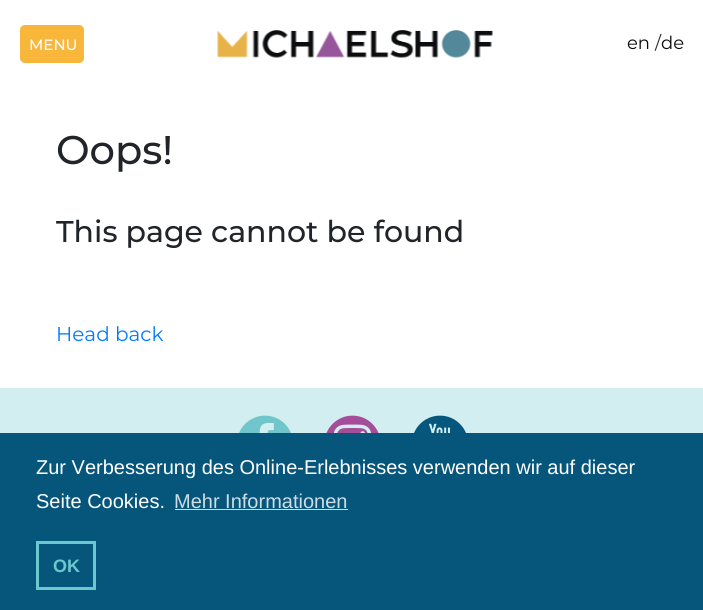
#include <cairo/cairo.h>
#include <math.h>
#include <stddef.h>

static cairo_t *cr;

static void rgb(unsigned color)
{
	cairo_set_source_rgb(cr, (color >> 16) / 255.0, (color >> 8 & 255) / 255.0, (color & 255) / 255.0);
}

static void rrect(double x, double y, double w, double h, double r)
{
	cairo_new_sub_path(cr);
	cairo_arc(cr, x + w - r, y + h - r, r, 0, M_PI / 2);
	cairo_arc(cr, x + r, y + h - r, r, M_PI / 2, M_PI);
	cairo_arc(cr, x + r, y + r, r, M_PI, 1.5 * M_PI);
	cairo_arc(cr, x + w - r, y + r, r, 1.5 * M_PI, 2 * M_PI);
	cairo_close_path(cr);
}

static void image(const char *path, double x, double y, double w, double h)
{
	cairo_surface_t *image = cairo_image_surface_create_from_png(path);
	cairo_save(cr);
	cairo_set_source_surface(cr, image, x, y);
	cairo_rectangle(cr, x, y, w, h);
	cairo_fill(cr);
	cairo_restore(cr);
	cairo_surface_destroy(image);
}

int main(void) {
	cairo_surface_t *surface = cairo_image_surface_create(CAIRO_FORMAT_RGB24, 703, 610);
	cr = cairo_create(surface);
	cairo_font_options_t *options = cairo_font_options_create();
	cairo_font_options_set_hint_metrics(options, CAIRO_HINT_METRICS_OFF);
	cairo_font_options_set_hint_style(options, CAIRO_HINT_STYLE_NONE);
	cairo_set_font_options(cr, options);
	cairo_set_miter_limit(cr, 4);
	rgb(0xffffff);
	cairo_paint(cr);
	rgb(0xf8b63b);
	rrect(20, 25, 64, 38, 5);
	cairo_fill(cr);
	image("img/1.png", 217, 30, 276, 28);
	rgb(0xd3eef0);
	cairo_rectangle(cr, 0, 388, 703, 45);
	cairo_fill(cr);
	image("img/2.png", 239, 415, 52, 18);
	image("img/3.png", 326, 415, 53, 18);
	image("img/4.png", 414, 415, 52, 18);
	rgb(0x06567c);
	cairo_rectangle(cr, 0, 433, 703, 177);
	cairo_fill(cr);
	rgb(0xcddde5);
	cairo_rectangle(cr, 175, 509, 173, 1);
	cairo_fill(cr);
	cairo_rectangle(cr, 37.5, 542.5, 57, 46);
	rgb(0x6dc8ce);
	cairo_set_line_width(cr, 3);
	cairo_stroke(cr);
	cairo_select_font_face(cr, "Montserrat Medium", CAIRO_FONT_SLANT_NORMAL, CAIRO_FONT_WEIGHT_NORMAL);
	cairo_set_font_size(cr, 15);
	rgb(0xffffff);
	cairo_move_to(cr, 29, 50);
	cairo_show_text(cr, "MENU");
	cairo_select_font_face(cr, "Montserrat", CAIRO_FONT_SLANT_NORMAL, CAIRO_FONT_WEIGHT_NORMAL);
	cairo_set_font_size(cr, 18);
	rgb(0x0a0a0a);
	cairo_move_to(cr, 627, 49);
	cairo_show_text(cr, "en");
	rgb(0x2a2e32);
	cairo_move_to(cr, 655, 49);
	cairo_show_text(cr, "/");
	rgb(0x0a0a0a);
	cairo_move_to(cr, 661, 49);
	cairo_show_text(cr, "de");
	cairo_select_font_face(cr, "Montserrat Medium", CAIRO_FONT_SLANT_NORMAL, CAIRO_FONT_WEIGHT_NORMAL);
	cairo_set_font_size(cr, 40);
	rgb(0x212529);
	cairo_move_to(cr, 56, 164);
	cairo_show_text(cr, "Oops!");
	cairo_set_font_size(cr, 30);
	cairo_move_to(cr, 56, 242);
	cairo_show_text(cr, "This page cannot be found");
	cairo_select_font_face(cr, "Montserrat", CAIRO_FONT_SLANT_NORMAL, CAIRO_FONT_WEIGHT_NORMAL);
	cairo_set_font_size(cr, 20);
	rgb(0x007bff);
	cairo_move_to(cr, 56, 341);
	cairo_show_text(cr, "Head back");
	cairo_select_font_face(cr, "Liberation Sans", CAIRO_FONT_SLANT_NORMAL, CAIRO_FONT_WEIGHT_NORMAL);
	rgb(0xffffff);
	cairo_move_to(cr, 36, 474);
	cairo_show_text(cr, "Zur Verbesserung des Online-Erlebnisses verwenden wir auf dieser");
	cairo_move_to(cr, 36, 508);
	cairo_show_text(cr, "Seite Cookies.");
	rgb(0xcddde5);
	cairo_move_to(cr, 174, 508);
	cairo_show_text(cr, "Mehr Informationen");
	cairo_select_font_face(cr, "Liberation Sans", CAIRO_FONT_SLANT_NORMAL, CAIRO_FONT_WEIGHT_BOLD);
	cairo_set_font_size(cr, 18);
	rgb(0x6dc8ce);
	cairo_move_to(cr, 53, 572);
	cairo_show_text(cr, "OK");
	cairo_surface_write_to_png(surface, "page.png");
	cairo_font_options_destroy(options);
	cairo_destroy(cr);
	cairo_surface_destroy(surface);
	return 0;
}
